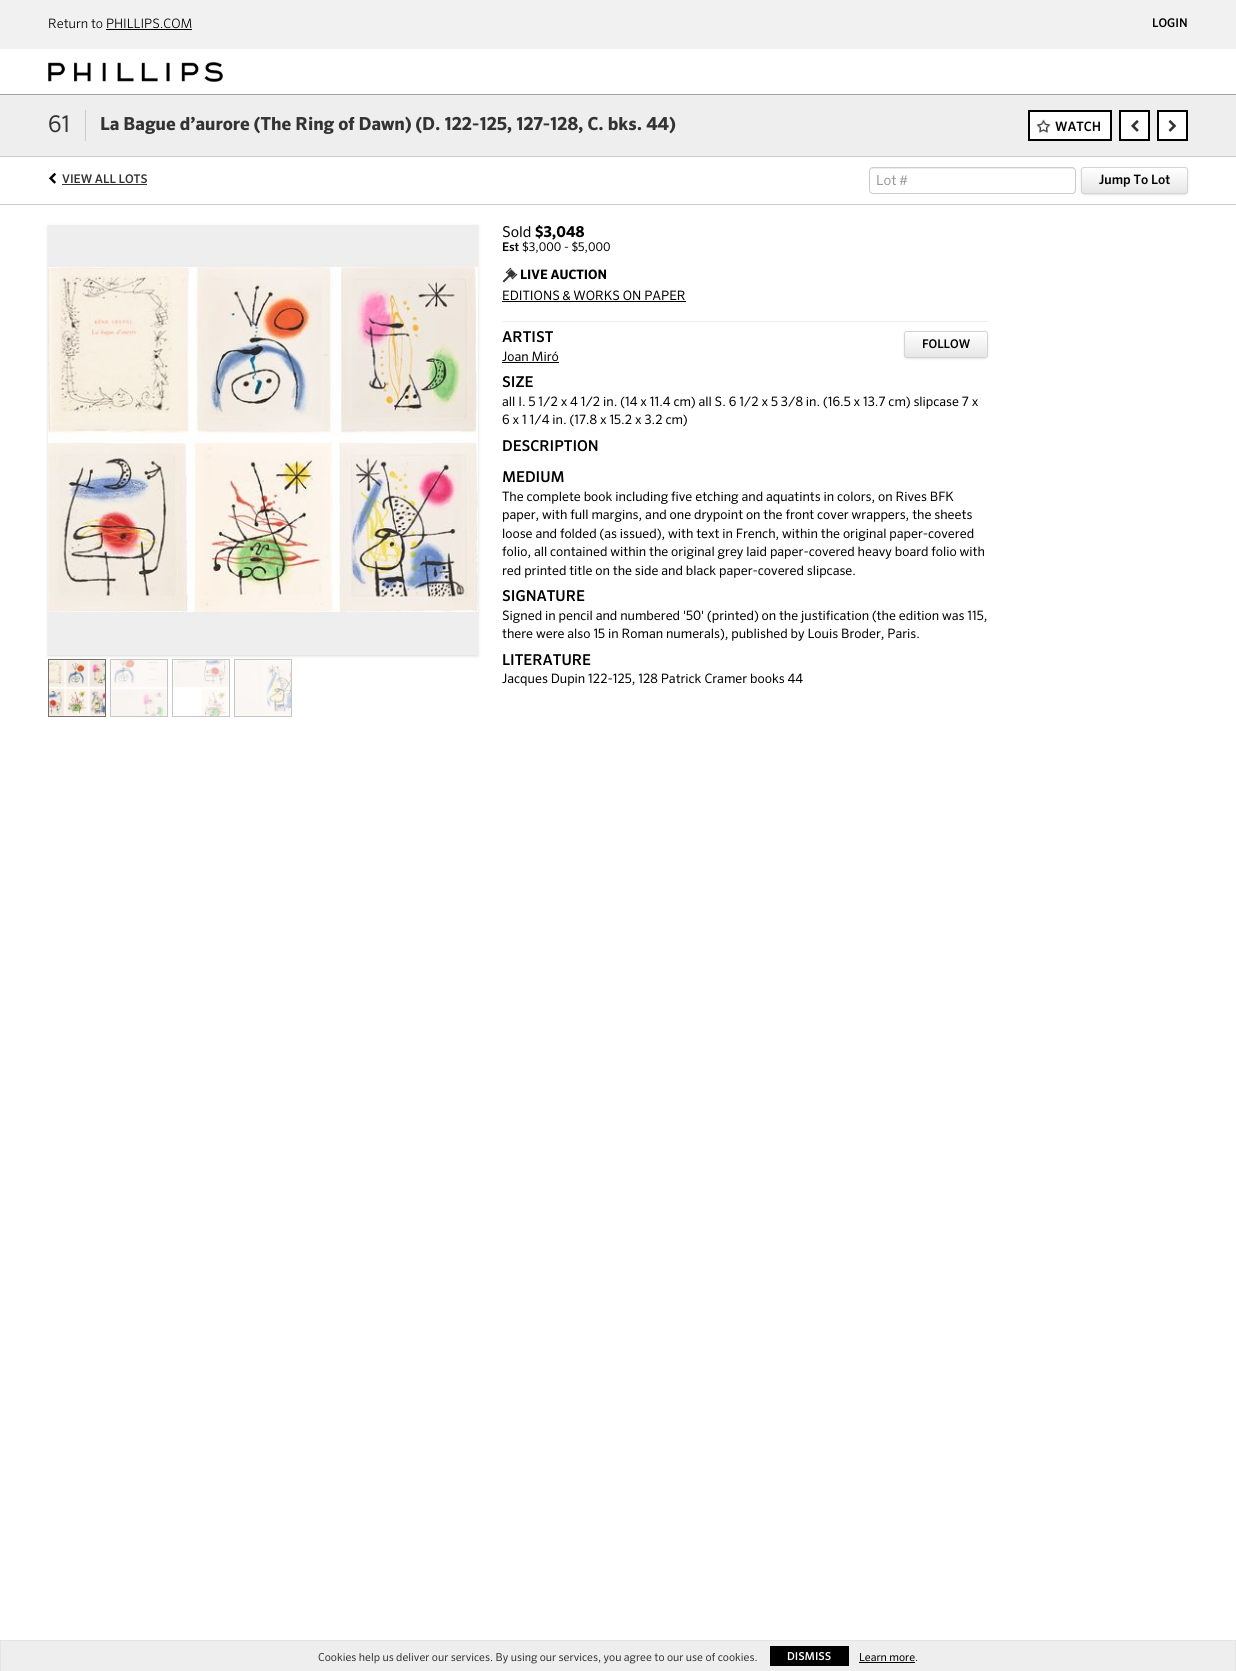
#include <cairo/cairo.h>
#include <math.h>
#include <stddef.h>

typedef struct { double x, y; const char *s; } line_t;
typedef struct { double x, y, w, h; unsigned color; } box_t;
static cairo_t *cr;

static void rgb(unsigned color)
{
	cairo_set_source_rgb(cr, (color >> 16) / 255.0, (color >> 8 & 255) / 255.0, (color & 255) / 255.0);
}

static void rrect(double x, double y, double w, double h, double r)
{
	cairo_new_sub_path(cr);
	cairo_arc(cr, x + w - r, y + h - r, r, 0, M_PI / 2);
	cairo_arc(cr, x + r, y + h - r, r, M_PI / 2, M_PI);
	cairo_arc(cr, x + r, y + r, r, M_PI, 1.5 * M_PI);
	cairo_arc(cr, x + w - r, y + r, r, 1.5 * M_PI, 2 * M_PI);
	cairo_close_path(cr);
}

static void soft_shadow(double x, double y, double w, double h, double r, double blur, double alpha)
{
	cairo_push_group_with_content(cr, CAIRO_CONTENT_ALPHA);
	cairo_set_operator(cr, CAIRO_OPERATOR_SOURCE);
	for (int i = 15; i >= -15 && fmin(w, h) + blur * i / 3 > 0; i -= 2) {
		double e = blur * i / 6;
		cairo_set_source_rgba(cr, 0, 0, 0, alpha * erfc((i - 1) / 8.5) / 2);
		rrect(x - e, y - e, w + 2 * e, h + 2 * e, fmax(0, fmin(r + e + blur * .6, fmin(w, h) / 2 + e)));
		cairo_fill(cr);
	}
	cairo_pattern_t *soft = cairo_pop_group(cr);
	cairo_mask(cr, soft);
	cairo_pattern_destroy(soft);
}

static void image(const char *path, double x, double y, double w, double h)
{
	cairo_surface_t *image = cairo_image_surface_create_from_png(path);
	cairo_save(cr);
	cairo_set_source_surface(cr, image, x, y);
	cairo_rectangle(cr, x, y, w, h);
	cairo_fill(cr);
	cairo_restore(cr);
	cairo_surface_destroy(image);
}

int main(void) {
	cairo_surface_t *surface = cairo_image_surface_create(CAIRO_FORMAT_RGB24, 1236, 1671);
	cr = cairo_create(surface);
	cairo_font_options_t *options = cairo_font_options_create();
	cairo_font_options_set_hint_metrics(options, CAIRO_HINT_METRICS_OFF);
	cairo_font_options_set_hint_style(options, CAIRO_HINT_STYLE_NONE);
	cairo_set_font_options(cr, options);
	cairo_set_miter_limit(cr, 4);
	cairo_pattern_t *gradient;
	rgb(0xffffff);
	cairo_paint(cr);
	{
		static const box_t items[] = {
			{0, 94, 1236, 1, 0xa3a3a3},
			{0, 0, 1236, 49, 0xf1f1f1},
			{106, 29, 86, 1, 0x000000},
		};
		for (size_t i = 0; i < sizeof items / sizeof *items; i++) {
			rgb(items[i].color);
			cairo_rectangle(cr, items[i].x, items[i].y, items[i].w, items[i].h);
			cairo_fill(cr);
		}
	}
	image("img/1.png", 48, 62, 175, 20);
	{
		static const box_t items[] = {
			{0, 95, 1236, 61, 0xeeeeee},
			{0, 156, 1236, 1, 0xcccccc},
			{85, 110, 1, 31, 0xcccccc},
		};
		for (size_t i = 0; i < sizeof items / sizeof *items; i++) {
			rgb(items[i].color);
			cairo_rectangle(cr, items[i].x, items[i].y, items[i].w, items[i].h);
			cairo_fill(cr);
		}
	}
	rgb(0xffffff);
	cairo_rectangle(cr, 1029, 111, 82, 29);
	cairo_fill_preserve(cr);
	rgb(0x000000);
	cairo_stroke(cr);
	image("img/2.png", 1036, 119, 15, 14);
	rgb(0xffffff);
	cairo_rectangle(cr, 1120, 111, 29, 29);
	cairo_fill_preserve(cr);
	rgb(0x000000);
	cairo_stroke(cr);
	image("img/3.png", 1131, 120, 8, 12);
	rgb(0xffffff);
	cairo_rectangle(cr, 1158, 111, 29, 29);
	cairo_fill_preserve(cr);
	rgb(0x000000);
	cairo_stroke(cr);
	image("img/4.png", 1168, 120, 9, 12);
	image("img/5.png", 49, 172, 7, 12);
	rgb(0x333333);
	cairo_rectangle(cr, 62, 184, 85, 1);
	cairo_fill(cr);
	rgb(0xececec);
	cairo_new_path(cr);
	cairo_move_to(cr, 873, 169);
	cairo_line_to(cr, 1072, 169);
	cairo_curve_to(cr, 1074, 169, 1075, 170, 1075, 172);
	cairo_curve_to(cr, 1075, 170, 1074, 168, 1072, 168);
	cairo_line_to(cr, 873, 168);
	cairo_curve_to(cr, 871, 168, 870, 170, 870, 172);
	cairo_curve_to(cr, 870, 170, 871, 169, 873, 169);
	cairo_close_path(cr);
	cairo_fill(cr);
	rrect(869.5, 167.5, 206, 26, 3.5);
	rgb(0xcccccc);
	cairo_set_line_width(cr, 1);
	cairo_stroke(cr);
	rgb(0x000000);
	soft_shadow(1082, 169, 105, 25, 2, 1.5, 0.2);
	cairo_save(cr);
	rrect(1081, 167, 107, 27, 3);
	cairo_clip(cr);
	gradient = cairo_pattern_create_linear(1135, 168, 1135, 193);
	cairo_pattern_add_color_stop_rgba(gradient, 0, 1, 1, 1, 1);
	cairo_pattern_add_color_stop_rgba(gradient, 1, 0.902, 0.902, 0.902, 1);
	cairo_set_source(cr, gradient);
	cairo_pattern_destroy(gradient);
	cairo_rectangle(cr, 1081, 168, 107, 25);
	cairo_fill(cr);
	cairo_restore(cr);
	rrect(1081.5, 167.5, 106, 26, 2.5);
	rgb(0xd4d4d4);
	cairo_stroke(cr);
	rgb(0xcccccc);
	cairo_rectangle(cr, 0, 204, 1236, 1);
	cairo_fill(cr);
	rgb(0xdad9d7);
	soft_shadow(48, 226, 430, 430, 0, 1.5, 1);
	image("img/6.png", 48, 225, 430, 430);
	cairo_rectangle(cr, 48.5, 659.5, 57, 57);
	rgb(0x717171);
	cairo_stroke(cr);
	cairo_rectangle(cr, 110.5, 659.5, 57, 57);
	rgb(0xc6c6c6);
	cairo_stroke(cr);
	cairo_rectangle(cr, 172.5, 659.5, 57, 57);
	cairo_stroke(cr);
	cairo_rectangle(cr, 234.5, 659.5, 57, 57);
	cairo_stroke(cr);
	image("img/7.png", 49, 660, 56, 56);
	image("img/8.png", 111, 660, 56, 56);
	image("img/9.png", 173, 660, 56, 56);
	image("img/10.png", 235, 660, 56, 56);
	image("img/11.png", 502, 267, 16, 16);
	rgb(0x000000);
	cairo_rectangle(cr, 502, 301, 184, 1);
	cairo_fill(cr);
	rgb(0xeeeeee);
	cairo_rectangle(cr, 502, 321, 486, 1);
	cairo_fill(cr);
	rgb(0x000000);
	soft_shadow(905, 333, 82, 25, 2, 1.5, 0.2);
	cairo_save(cr);
	rrect(904, 331, 84, 27, 3);
	cairo_clip(cr);
	gradient = cairo_pattern_create_linear(946, 332, 946, 357);
	cairo_pattern_add_color_stop_rgba(gradient, 0, 1, 1, 1, 1);
	cairo_pattern_add_color_stop_rgba(gradient, 1, 0.902, 0.902, 0.902, 1);
	cairo_set_source(cr, gradient);
	cairo_pattern_destroy(gradient);
	cairo_rectangle(cr, 904, 332, 84, 25);
	cairo_fill(cr);
	cairo_restore(cr);
	cairo_set_source_rgba(cr, 1, 1, 1, 0.4);
	cairo_new_path(cr);
	cairo_move_to(cr, 907, 333);
	cairo_line_to(cr, 985, 333);
	cairo_curve_to(cr, 986, 333, 987, 334, 987, 335);
	cairo_curve_to(cr, 987, 328, 975, 332, 972, 332);
	cairo_line_to(cr, 920, 332);
	cairo_curve_to(cr, 917, 332, 905, 328, 905, 335);
	cairo_curve_to(cr, 905, 334, 906, 333, 907, 333);
	cairo_close_path(cr);
	cairo_fill(cr);
	rrect(904.5, 331.5, 83, 26, 2.5);
	rgb(0xd4d4d4);
	cairo_stroke(cr);
	{
		static const box_t items[] = {
			{502, 362, 57, 1, 0x000000},
			{1, 1641, 1234, 30, 0xeeeeee},
			{0, 1640, 1236, 1, 0xe4e4e4},
			{1235, 1640, 1, 31, 0xe4e4e4},
			{0, 1640, 1, 31, 0xe4e4e4},
			{770, 1646, 79, 20, 0x000000},
			{859, 1662, 56, 1, 0x000000},
		};
		for (size_t i = 0; i < sizeof items / sizeof *items; i++) {
			rgb(items[i].color);
			cairo_rectangle(cr, items[i].x, items[i].y, items[i].w, items[i].h);
			cairo_fill(cr);
		}
	}
	cairo_select_font_face(cr, "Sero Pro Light", CAIRO_FONT_SLANT_NORMAL, CAIRO_FONT_WEIGHT_NORMAL);
	cairo_set_font_size(cr, 13);
	cairo_move_to(cr, 48, 28);
	cairo_show_text(cr, "Return to PHILLIPS.COM");
	cairo_select_font_face(cr, "Sero Pro Medium", CAIRO_FONT_SLANT_NORMAL, CAIRO_FONT_WEIGHT_NORMAL);
	cairo_set_font_size(cr, 12);
	cairo_move_to(cr, 1152, 27);
	cairo_show_text(cr, "LOGIN");
	cairo_select_font_face(cr, "Sero Pro", CAIRO_FONT_SLANT_NORMAL, CAIRO_FONT_WEIGHT_NORMAL);
	cairo_set_font_size(cr, 23);
	rgb(0x333333);
	cairo_move_to(cr, 48, 132);
	cairo_show_text(cr, "61");
	cairo_select_font_face(cr, "Sero Pro", CAIRO_FONT_SLANT_NORMAL, CAIRO_FONT_WEIGHT_BOLD);
	cairo_set_font_size(cr, 18);
	cairo_move_to(cr, 100, 130);
	cairo_show_text(cr, "La Bague d’aurore (The Ring of Dawn) (D. 122-125, 127-128, C. bks. 44)");
	cairo_select_font_face(cr, "Sero Pro Medium", CAIRO_FONT_SLANT_NORMAL, CAIRO_FONT_WEIGHT_NORMAL);
	cairo_set_font_size(cr, 13);
	rgb(0x000000);
	cairo_move_to(cr, 1055, 131);
	cairo_show_text(cr, "WATCH");
	cairo_set_font_size(cr, 12);
	rgb(0x333333);
	cairo_move_to(cr, 62, 183);
	cairo_show_text(cr, "VIEW ALL LOTS");
	cairo_select_font_face(cr, "Sero Pro", CAIRO_FONT_SLANT_NORMAL, CAIRO_FONT_WEIGHT_NORMAL);
	cairo_set_font_size(cr, 14);
	rgb(0x999999);
	cairo_move_to(cr, 876, 185);
	cairo_show_text(cr, "Lot #");
	cairo_select_font_face(cr, "Sero Pro Medium", CAIRO_FONT_SLANT_NORMAL, CAIRO_FONT_WEIGHT_NORMAL);
	cairo_set_font_size(cr, 13);
	rgb(0x000000);
	cairo_move_to(cr, 1099, 184);
	cairo_show_text(cr, "Jump To Lot");
	cairo_select_font_face(cr, "Sero Pro", CAIRO_FONT_SLANT_NORMAL, CAIRO_FONT_WEIGHT_NORMAL);
	cairo_set_font_size(cr, 15);
	cairo_move_to(cr, 502, 237);
	cairo_show_text(cr, "Sold");
	cairo_select_font_face(cr, "Sero Pro", CAIRO_FONT_SLANT_NORMAL, CAIRO_FONT_WEIGHT_BOLD);
	cairo_move_to(cr, 535, 237);
	cairo_show_text(cr, "$3,048");
	cairo_select_font_face(cr, "Sero Pro Medium", CAIRO_FONT_SLANT_NORMAL, CAIRO_FONT_WEIGHT_NORMAL);
	cairo_set_font_size(cr, 12);
	cairo_move_to(cr, 502, 251);
	cairo_show_text(cr, "Est");
	cairo_select_font_face(cr, "Sero Pro", CAIRO_FONT_SLANT_NORMAL, CAIRO_FONT_WEIGHT_NORMAL);
	cairo_move_to(cr, 522, 251);
	cairo_show_text(cr, "$3,000 - $5,000");
	cairo_select_font_face(cr, "Sero Pro", CAIRO_FONT_SLANT_NORMAL, CAIRO_FONT_WEIGHT_BOLD);
	cairo_set_font_size(cr, 13);
	cairo_move_to(cr, 520, 279);
	cairo_show_text(cr, "LIVE AUCTION");
	cairo_select_font_face(cr, "Sero Pro", CAIRO_FONT_SLANT_NORMAL, CAIRO_FONT_WEIGHT_NORMAL);
	cairo_move_to(cr, 502, 300);
	cairo_show_text(cr, "EDITIONS & WORKS ON PAPER");
	cairo_select_font_face(cr, "Sero Pro Medium", CAIRO_FONT_SLANT_NORMAL, CAIRO_FONT_WEIGHT_NORMAL);
	cairo_set_font_size(cr, 15);
	cairo_move_to(cr, 502, 342);
	cairo_show_text(cr, "ARTIST");
	cairo_set_font_size(cr, 12);
	cairo_move_to(cr, 922, 348);
	cairo_show_text(cr, "FOLLOW");
	cairo_select_font_face(cr, "Sero Pro", CAIRO_FONT_SLANT_NORMAL, CAIRO_FONT_WEIGHT_NORMAL);
	cairo_set_font_size(cr, 13);
	cairo_move_to(cr, 502, 361);
	cairo_show_text(cr, "Joan Miró");
	cairo_select_font_face(cr, "Sero Pro Medium", CAIRO_FONT_SLANT_NORMAL, CAIRO_FONT_WEIGHT_NORMAL);
	cairo_set_font_size(cr, 15);
	cairo_move_to(cr, 502, 387);
	cairo_show_text(cr, "SIZE");
	cairo_select_font_face(cr, "Sero Pro", CAIRO_FONT_SLANT_NORMAL, CAIRO_FONT_WEIGHT_NORMAL);
	cairo_set_font_size(cr, 13);
	cairo_move_to(cr, 502, 406);
	cairo_show_text(cr, "all I. 5 1/2 x 4 1/2 in. (14 x 11.4 cm) all S. 6 1/2 x 5 3/8 in. (16.5 x 13.7 cm) slipcase 7 x");
	cairo_move_to(cr, 502, 424);
	cairo_show_text(cr, "6 x 1 1/4 in. (17.8 x 15.2 x 3.2 cm)");
	cairo_select_font_face(cr, "Sero Pro Medium", CAIRO_FONT_SLANT_NORMAL, CAIRO_FONT_WEIGHT_NORMAL);
	cairo_set_font_size(cr, 15);
	cairo_move_to(cr, 502, 451);
	cairo_show_text(cr, "DESCRIPTION");
	cairo_move_to(cr, 502, 482);
	cairo_show_text(cr, "MEDIUM");
	cairo_select_font_face(cr, "Sero Pro", CAIRO_FONT_SLANT_NORMAL, CAIRO_FONT_WEIGHT_NORMAL);
	cairo_set_font_size(cr, 13);
	{
		static const line_t items[] = {
			{502, 501, "The complete book including five etching and aquatints in colors, on Rives BFK"},
			{502, 519, "paper, with full margins, and one drypoint on the front cover wrappers, the sheets"},
			{502, 538, "loose and folded (as issued), with text in French, within the original paper-covered"},
			{502, 556, "folio, all contained within the original grey laid paper-covered heavy board folio with"},
			{502, 575, "red printed title on the side and black paper-covered slipcase."},
		};
		for (size_t i = 0; i < sizeof items / sizeof *items; i++) {
			cairo_move_to(cr, items[i].x, items[i].y);
			cairo_show_text(cr, items[i].s);
		}
	}
	cairo_select_font_face(cr, "Sero Pro Medium", CAIRO_FONT_SLANT_NORMAL, CAIRO_FONT_WEIGHT_NORMAL);
	cairo_set_font_size(cr, 15);
	cairo_move_to(cr, 502, 601);
	cairo_show_text(cr, "SIGNATURE");
	cairo_select_font_face(cr, "Sero Pro", CAIRO_FONT_SLANT_NORMAL, CAIRO_FONT_WEIGHT_NORMAL);
	cairo_set_font_size(cr, 13);
	cairo_move_to(cr, 502, 620);
	cairo_show_text(cr, "Signed in pencil and numbered '50' (printed) on the justification (the edition was 115,");
	cairo_move_to(cr, 502, 638);
	cairo_show_text(cr, "there were also 15 in Roman numerals), published by Louis Broder, Paris.");
	cairo_select_font_face(cr, "Sero Pro Medium", CAIRO_FONT_SLANT_NORMAL, CAIRO_FONT_WEIGHT_NORMAL);
	cairo_set_font_size(cr, 15);
	cairo_move_to(cr, 502, 665);
	cairo_show_text(cr, "LITERATURE");
	cairo_select_font_face(cr, "Sero Pro", CAIRO_FONT_SLANT_NORMAL, CAIRO_FONT_WEIGHT_NORMAL);
	cairo_set_font_size(cr, 13);
	cairo_move_to(cr, 502, 683);
	cairo_show_text(cr, "Jacques Dupin 122-125, 128 Patrick Cramer books 44");
	cairo_set_font_size(cr, 11);
	rgb(0x333333);
	cairo_move_to(cr, 318, 1661);
	cairo_show_text(cr, "Cookies help us deliver our services. By using our services, you agree to our use of cookies.");
	cairo_select_font_face(cr, "Sero Pro Medium", CAIRO_FONT_SLANT_NORMAL, CAIRO_FONT_WEIGHT_NORMAL);
	rgb(0xffffff);
	cairo_move_to(cr, 787, 1660);
	cairo_show_text(cr, "DISMISS");
	cairo_select_font_face(cr, "Sero Pro", CAIRO_FONT_SLANT_NORMAL, CAIRO_FONT_WEIGHT_NORMAL);
	rgb(0x000000);
	cairo_move_to(cr, 859, 1661);
	cairo_show_text(cr, "Learn more");
	rgb(0x333333);
	cairo_move_to(cr, 915, 1661);
	cairo_show_text(cr, ".");
	cairo_surface_write_to_png(surface, "page.png");
	cairo_font_options_destroy(options);
	cairo_destroy(cr);
	cairo_surface_destroy(surface);
	return 0;
}
